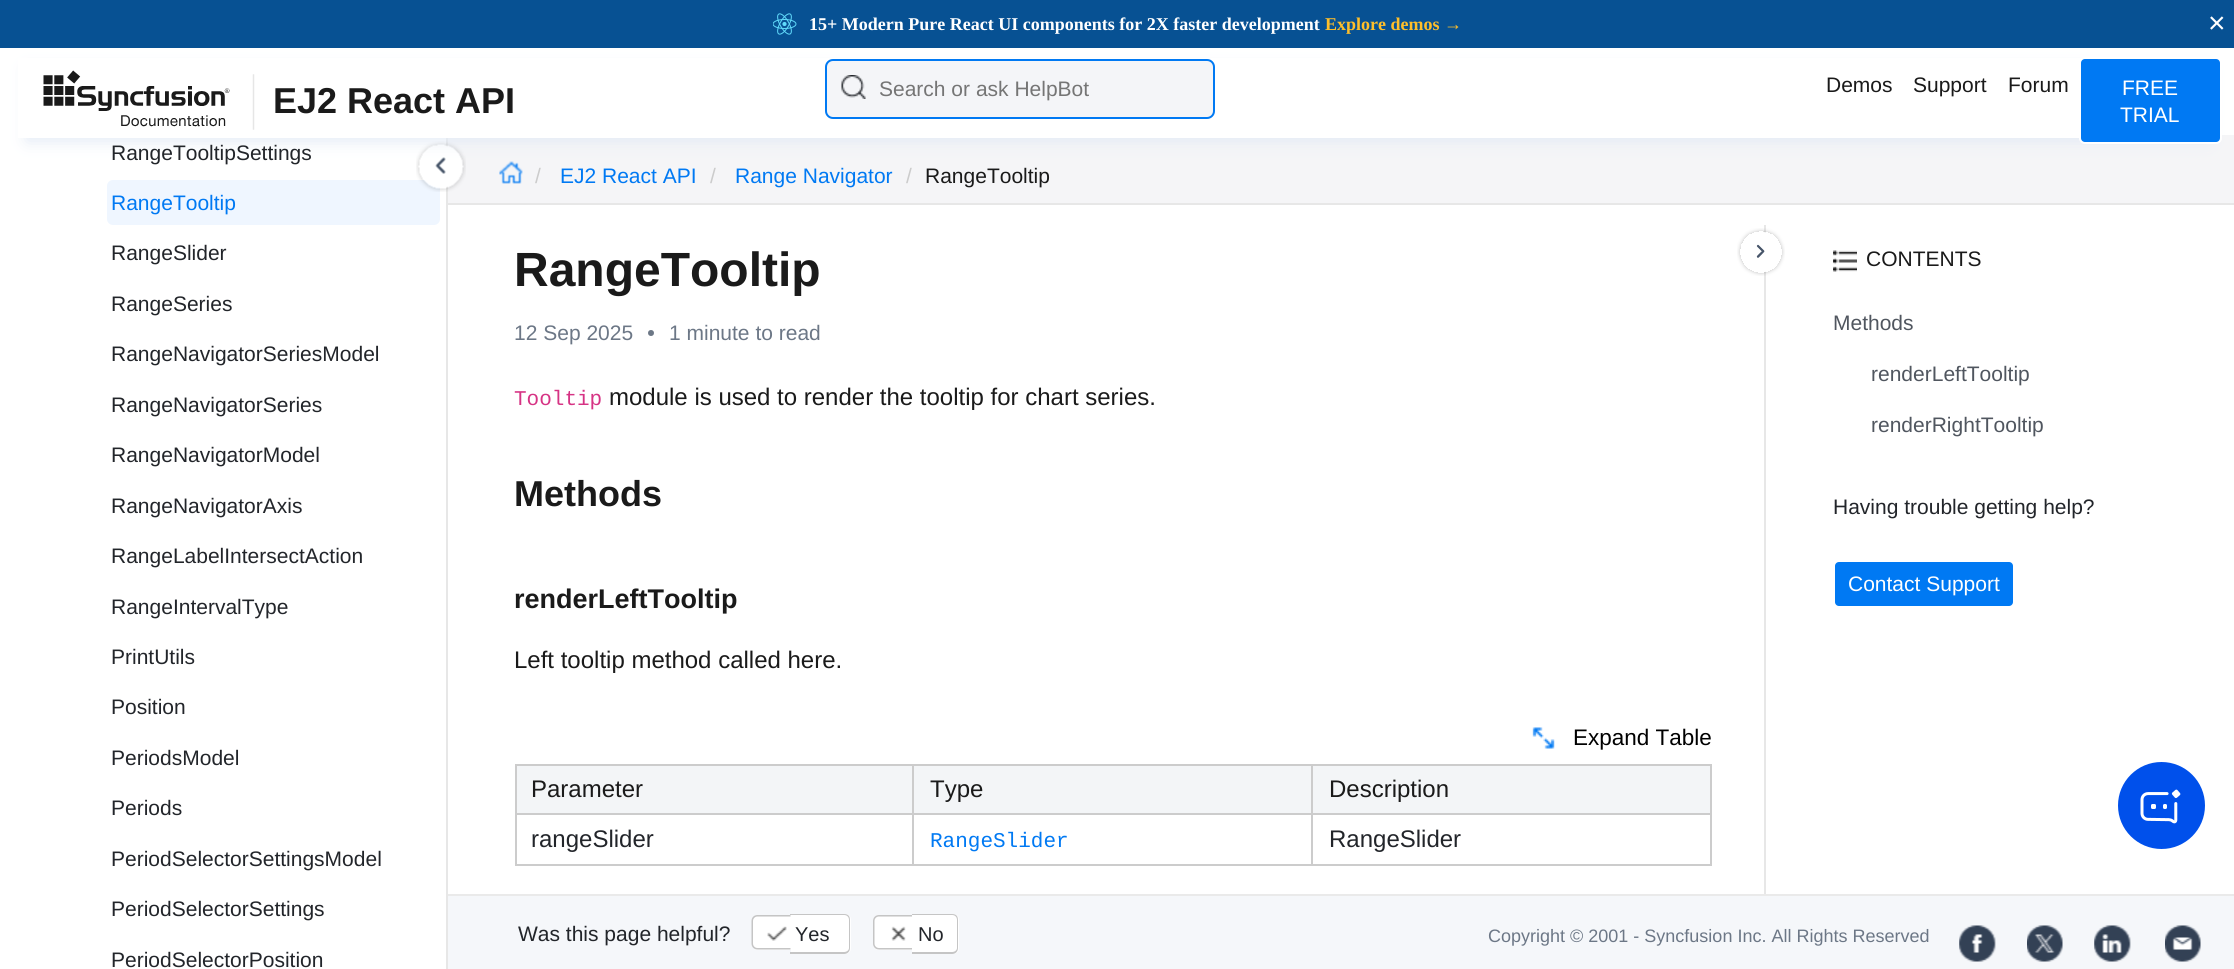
#include <cairo/cairo.h>
#include <math.h>
#include <stddef.h>

typedef struct { double x, y; const char *s; } line_t;
typedef struct { double x, y, w, h; unsigned color; } box_t;
static cairo_t *cr;

static void rgb(unsigned color)
{
	cairo_set_source_rgb(cr, (color >> 16) / 255.0, (color >> 8 & 255) / 255.0, (color & 255) / 255.0);
}

static void rrect(double x, double y, double w, double h, double r)
{
	cairo_new_sub_path(cr);
	cairo_arc(cr, x + w - r, y + h - r, r, 0, M_PI / 2);
	cairo_arc(cr, x + r, y + h - r, r, M_PI / 2, M_PI);
	cairo_arc(cr, x + r, y + r, r, M_PI, 1.5 * M_PI);
	cairo_arc(cr, x + w - r, y + r, r, 1.5 * M_PI, 2 * M_PI);
	cairo_close_path(cr);
}

static void soft_shadow(double x, double y, double w, double h, double r, double blur, double alpha)
{
	cairo_push_group_with_content(cr, CAIRO_CONTENT_ALPHA);
	cairo_set_operator(cr, CAIRO_OPERATOR_SOURCE);
	for (int i = 15; i >= -15 && fmin(w, h) + blur * i / 3 > 0; i -= 2) {
		double e = blur * i / 6;
		cairo_set_source_rgba(cr, 0, 0, 0, alpha * erfc((i - 1) / 8.5) / 2);
		rrect(x - e, y - e, w + 2 * e, h + 2 * e, fmax(0, fmin(r + e + blur * .6, fmin(w, h) / 2 + e)));
		cairo_fill(cr);
	}
	cairo_pattern_t *soft = cairo_pop_group(cr);
	cairo_mask(cr, soft);
	cairo_pattern_destroy(soft);
}

static void image(const char *path, double x, double y, double w, double h)
{
	cairo_surface_t *image = cairo_image_surface_create_from_png(path);
	cairo_save(cr);
	cairo_set_source_surface(cr, image, x, y);
	cairo_rectangle(cr, x, y, w, h);
	cairo_fill(cr);
	cairo_restore(cr);
	cairo_surface_destroy(image);
}

int main(void) {
	cairo_surface_t *surface = cairo_image_surface_create(CAIRO_FORMAT_RGB24, 2234, 969);
	cr = cairo_create(surface);
	cairo_font_options_t *options = cairo_font_options_create();
	cairo_font_options_set_hint_metrics(options, CAIRO_HINT_METRICS_OFF);
	cairo_font_options_set_hint_style(options, CAIRO_HINT_STYLE_NONE);
	cairo_set_font_options(cr, options);
	cairo_set_miter_limit(cr, 4);
	rgb(0xffffff);
	cairo_paint(cr);
	rgb(0xf5f5f7);
	cairo_rectangle(cr, 448, 135, 1786, 68);
	cairo_fill(cr);
	image("img/4.png", 499, 161, 24, 23);
	rgb(0xe7e7e7);
	cairo_rectangle(cr, 446, 138, 2, 831);
	cairo_fill(cr);
	rgb(0xeff6ff);
	rrect(107, 180, 333, 45, 6);
	cairo_fill(cr);
	image("img/5.png", 416, 141, 50, 51);
	rgb(0xe2eaf5);
	soft_shadow(27, 69, 2181, 72, 0, 8, 1);
	rgb(0x075193);
	cairo_rectangle(cr, 0, 0, 2234, 48);
	cairo_fill(cr);
	image("img/1.png", 773, 13, 24, 22);
	rgb(0xffffff);
	cairo_rectangle(cr, 18, 58, 2199, 80);
	cairo_fill(cr);
	image("img/2.png", 43, 70, 212, 60);
	rgb(0xf4f5f8);
	rrect(825, 59, 390, 60, 8);
	cairo_fill(cr);
	image("img/3.png", 841, 75, 25, 24);
	rrect(826, 60, 388, 58, 7);
	rgb(0x0079f3);
	cairo_stroke(cr);
	rrect(2080, 58, 141, 85, 5);
	cairo_fill_preserve(cr);
	rgb(0xffffff);
	cairo_stroke(cr);
	rgb(0xe7e7e7);
	cairo_rectangle(cr, 448, 203, 1786, 2);
	cairo_fill(cr);
	cairo_rectangle(cr, 1764, 225, 2, 669);
	cairo_fill(cr);
	rgb(0x6c7786);
	cairo_arc(cr, 651, 333, 3, 0, 2 * M_PI);
	cairo_fill(cr);
	image("img/6.png", 1532, 727, 23, 22);
	{
		static const box_t items[] = {
			{517, 766, 395, 47, 0xf3f5f7},
			{1311, 764, 401, 2, 0xcccccc},
			{1311, 813, 401, 2, 0xcccccc},
			{1710, 813, 2, 53, 0xcccccc},
			{1311, 864, 401, 2, 0xcccccc},
			{1311, 813, 2, 53, 0xcccccc},
			{912, 813, 401, 2, 0xcccccc},
			{1311, 764, 2, 51, 0xcccccc},
			{912, 764, 401, 2, 0xcccccc},
			{912, 864, 401, 2, 0xcccccc},
			{912, 813, 2, 53, 0xcccccc},
			{515, 813, 399, 2, 0xcccccc},
			{912, 764, 2, 51, 0xcccccc},
			{515, 764, 399, 2, 0xcccccc},
			{515, 864, 399, 2, 0xcccccc},
			{515, 813, 2, 53, 0xcccccc},
			{515, 764, 2, 51, 0xcccccc},
			{914, 766, 397, 47, 0xf3f5f7},
			{1313, 766, 397, 47, 0xf3f5f7},
			{1710, 764, 2, 51, 0xcccccc},
		};
		for (size_t i = 0; i < sizeof items / sizeof *items; i++) {
			rgb(items[i].color);
			cairo_rectangle(cr, items[i].x, items[i].y, items[i].w, items[i].h);
			cairo_fill(cr);
		}
	}
	image("img/7.png", 1737, 228, 48, 48);
	image("img/8.png", 1833, 250, 24, 22);
	rgb(0x0079f3);
	rrect(1834, 561, 180, 46, 5);
	cairo_fill_preserve(cr);
	rgb(0xffffff);
	cairo_stroke(cr);
	rgb(0x0050eb);
	cairo_arc(cr, 2161.5, 805.5, 43.5, 0, 2 * M_PI);
	cairo_fill(cr);
	image("img/9.png", 2140, 789, 41, 35);
	rgb(0xf5f7fa);
	cairo_rectangle(cr, 448, 896, 1786, 73);
	cairo_fill(cr);
	rgb(0xeaeaea);
	cairo_rectangle(cr, 448, 894, 1786, 2);
	cairo_fill(cr);
	rgb(0xffffff);
	cairo_new_path(cr);
	cairo_move_to(cr, 758, 915);
	cairo_line_to(cr, 791, 915);
	cairo_line_to(cr, 791, 950);
	cairo_line_to(cr, 758, 950);
	cairo_curve_to(cr, 754.5, 950, 752, 947.5, 752, 944);
	cairo_line_to(cr, 752, 921);
	cairo_curve_to(cr, 752, 917.5, 754.5, 915, 758, 915);
	cairo_close_path(cr);
	cairo_fill(cr);
	rgb(0xc5c5c5);
	cairo_set_fill_rule(cr, CAIRO_FILL_RULE_EVEN_ODD);
	cairo_new_path(cr);
	cairo_move_to(cr, 757.5, 915);
	cairo_line_to(cr, 790.5, 915);
	cairo_line_to(cr, 790.5, 949.5);
	cairo_line_to(cr, 757.5, 949.5);
	cairo_curve_to(cr, 754, 949.5, 751.5, 947, 751.5, 943.5);
	cairo_line_to(cr, 751.5, 921);
	cairo_curve_to(cr, 751.5, 917.5, 754, 915, 757.5, 915);
	cairo_close_path(cr);
	cairo_move_to(cr, 757.5, 916.5);
	cairo_line_to(cr, 790.5, 916.5);
	cairo_line_to(cr, 790.5, 948);
	cairo_line_to(cr, 757.5, 948);
	cairo_curve_to(cr, 755, 948, 753, 946, 753, 943.5);
	cairo_line_to(cr, 753, 921);
	cairo_curve_to(cr, 753, 918.5, 755, 916.5, 757.5, 916.5);
	cairo_close_path(cr);
	cairo_fill(cr);
	rgb(0xffffff);
	cairo_new_path(cr);
	cairo_move_to(cr, 791, 914);
	cairo_line_to(cr, 845, 914);
	cairo_curve_to(cr, 848.5, 914, 851, 916.5, 851, 920);
	cairo_line_to(cr, 851, 948);
	cairo_curve_to(cr, 851, 951.5, 848.5, 954, 845, 954);
	cairo_line_to(cr, 791, 954);
	cairo_close_path(cr);
	cairo_fill(cr);
	rgb(0xc5c5c5);
	cairo_new_path(cr);
	cairo_move_to(cr, 790, 914);
	cairo_line_to(cr, 844, 914);
	cairo_curve_to(cr, 848, 914, 850, 916, 850, 920);
	cairo_line_to(cr, 850, 948);
	cairo_curve_to(cr, 850, 951, 848, 954, 844, 954);
	cairo_line_to(cr, 790, 954);
	cairo_close_path(cr);
	cairo_move_to(cr, 790, 915);
	cairo_line_to(cr, 844, 915);
	cairo_curve_to(cr, 847, 915, 849, 917, 849, 920);
	cairo_line_to(cr, 849, 948);
	cairo_curve_to(cr, 849, 950, 847, 952, 844, 952);
	cairo_line_to(cr, 790, 952);
	cairo_close_path(cr);
	cairo_fill(cr);
	image("img/10.png", 767, 926, 20, 15);
	rgb(0xffffff);
	cairo_new_path(cr);
	cairo_move_to(cr, 879, 915);
	cairo_line_to(cr, 912, 915);
	cairo_line_to(cr, 912, 950);
	cairo_line_to(cr, 879, 950);
	cairo_curve_to(cr, 875.5, 950, 873, 947.5, 873, 944);
	cairo_line_to(cr, 873, 921);
	cairo_curve_to(cr, 873, 917.5, 875.5, 915, 879, 915);
	cairo_close_path(cr);
	cairo_fill(cr);
	rgb(0xc5c5c5);
	cairo_new_path(cr);
	cairo_move_to(cr, 879, 915);
	cairo_line_to(cr, 912, 915);
	cairo_line_to(cr, 912, 949.5);
	cairo_line_to(cr, 879, 949.5);
	cairo_curve_to(cr, 875.5, 949.5, 873, 947, 873, 943.5);
	cairo_line_to(cr, 873, 921);
	cairo_curve_to(cr, 873, 917.5, 875.5, 915, 879, 915);
	cairo_close_path(cr);
	cairo_move_to(cr, 879, 916.5);
	cairo_line_to(cr, 912, 916.5);
	cairo_line_to(cr, 912, 948);
	cairo_line_to(cr, 879, 948);
	cairo_curve_to(cr, 876.5, 948, 874.5, 946, 874.5, 943.5);
	cairo_line_to(cr, 874.5, 921);
	cairo_curve_to(cr, 874.5, 918.5, 876.5, 916.5, 879, 916.5);
	cairo_close_path(cr);
	cairo_fill(cr);
	rgb(0xffffff);
	cairo_new_path(cr);
	cairo_move_to(cr, 912, 914);
	cairo_line_to(cr, 953, 914);
	cairo_curve_to(cr, 956.5, 914, 959, 916.5, 959, 920);
	cairo_line_to(cr, 959, 948);
	cairo_curve_to(cr, 959, 951.5, 956.5, 954, 953, 954);
	cairo_line_to(cr, 912, 954);
	cairo_close_path(cr);
	cairo_fill(cr);
	rgb(0xc5c5c5);
	cairo_new_path(cr);
	cairo_move_to(cr, 912, 914);
	cairo_line_to(cr, 952, 914);
	cairo_curve_to(cr, 956, 914, 958, 916, 958, 920);
	cairo_line_to(cr, 958, 948);
	cairo_curve_to(cr, 958, 951, 956, 954, 952, 954);
	cairo_line_to(cr, 912, 954);
	cairo_close_path(cr);
	cairo_move_to(cr, 912, 915);
	cairo_line_to(cr, 952, 915);
	cairo_curve_to(cr, 955, 915, 957, 917, 957, 920);
	cairo_line_to(cr, 957, 948);
	cairo_curve_to(cr, 957, 950, 955, 952, 952, 952);
	cairo_line_to(cr, 912, 952);
	cairo_close_path(cr);
	cairo_fill(cr);
	image("img/11.png", 891, 926, 15, 15);
	image("img/12.png", 1959, 925, 37, 37);
	image("img/13.png", 2027, 925, 36, 37);
	image("img/14.png", 2094, 925, 37, 37);
	image("img/15.png", 2165, 925, 36, 37);
	cairo_select_font_face(cr, "Liberation Serif", CAIRO_FONT_SLANT_NORMAL, CAIRO_FONT_WEIGHT_BOLD);
	cairo_set_font_size(cr, 18);
	rgb(0xffffff);
	cairo_move_to(cr, 809, 30);
	cairo_show_text(cr, "15+ Modern Pure React UI components for 2X faster development");
	rgb(0xffbf2a);
	cairo_move_to(cr, 1325, 30);
	cairo_show_text(cr, "Explore demos →");
	cairo_select_font_face(cr, "Liberation Sans", CAIRO_FONT_SLANT_NORMAL, CAIRO_FONT_WEIGHT_NORMAL);
	cairo_set_font_size(cr, 30);
	rgb(0xffffff);
	cairo_move_to(cr, 2208, 33);
	cairo_show_text(cr, "×");
	cairo_select_font_face(cr, "Liberation Sans", CAIRO_FONT_SLANT_NORMAL, CAIRO_FONT_WEIGHT_BOLD);
	cairo_set_font_size(cr, 36);
	rgb(0x1a1a1a);
	cairo_move_to(cr, 273, 113);
	cairo_show_text(cr, "EJ2 React API");
	cairo_select_font_face(cr, "Liberation Sans", CAIRO_FONT_SLANT_NORMAL, CAIRO_FONT_WEIGHT_NORMAL);
	cairo_set_font_size(cr, 21);
	rgb(0x757575);
	cairo_move_to(cr, 879, 96);
	cairo_show_text(cr, "Search or ask HelpBot");
	rgb(0x1a1a1a);
	{
		static const line_t items[] = {
			{1826, 92, "Demos"},
			{1913, 92, "Support"},
			{2008, 92, "Forum"},
		};
		for (size_t i = 0; i < sizeof items / sizeof *items; i++) {
			cairo_move_to(cr, items[i].x, items[i].y);
			cairo_show_text(cr, items[i].s);
		}
	}
	rgb(0xffffff);
	cairo_move_to(cr, 2122, 95);
	cairo_show_text(cr, "FREE");
	cairo_move_to(cr, 2120, 122);
	cairo_show_text(cr, "TRIAL");
	rgb(0xcccccc);
	cairo_move_to(cr, 535, 183);
	cairo_show_text(cr, "/");
	rgb(0x0079f3);
	cairo_move_to(cr, 560, 183);
	cairo_show_text(cr, "EJ2 React API");
	rgb(0xcccccc);
	cairo_move_to(cr, 710, 183);
	cairo_show_text(cr, "/");
	rgb(0x0079f3);
	cairo_move_to(cr, 735, 183);
	cairo_show_text(cr, "Range Navigator");
	rgb(0xcccccc);
	cairo_move_to(cr, 906, 183);
	cairo_show_text(cr, "/");
	rgb(0x1a1a1a);
	cairo_move_to(cr, 925, 183);
	cairo_show_text(cr, "RangeTooltip");
	rgb(0x22252a);
	cairo_move_to(cr, 111, 160);
	cairo_show_text(cr, "RangeTooltipSettings");
	rgb(0x0079f3);
	cairo_move_to(cr, 111, 210);
	cairo_show_text(cr, "RangeTooltip");
	rgb(0x22252a);
	{
		static const line_t items[] = {
			{111, 260, "RangeSlider"},
			{111, 311, "RangeSeries"},
			{111, 361, "RangeNavigatorSeriesModel"},
			{111, 412, "RangeNavigatorSeries"},
			{111, 462, "RangeNavigatorModel"},
			{111, 513, "RangeNavigatorAxis"},
			{111, 563, "RangeLabelIntersectAction"},
			{111, 614, "RangeIntervalType"},
			{111, 664, "PrintUtils"},
			{111, 714, "Position"},
			{111, 765, "PeriodsModel"},
			{111, 815, "Periods"},
			{111, 866, "PeriodSelectorSettingsModel"},
			{111, 916, "PeriodSelectorSettings"},
			{111, 967, "PeriodSelectorPosition"},
		};
		for (size_t i = 0; i < sizeof items / sizeof *items; i++) {
			cairo_move_to(cr, items[i].x, items[i].y);
			cairo_show_text(cr, items[i].s);
		}
	}
	cairo_select_font_face(cr, "Liberation Sans", CAIRO_FONT_SLANT_NORMAL, CAIRO_FONT_WEIGHT_BOLD);
	cairo_set_font_size(cr, 48);
	rgb(0x1a1a1a);
	cairo_move_to(cr, 514, 286);
	cairo_show_text(cr, "RangeTooltip");
	cairo_select_font_face(cr, "Liberation Sans", CAIRO_FONT_SLANT_NORMAL, CAIRO_FONT_WEIGHT_NORMAL);
	cairo_set_font_size(cr, 21);
	rgb(0x6c7786);
	cairo_move_to(cr, 514, 340);
	cairo_show_text(cr, "12 Sep 2025");
	cairo_move_to(cr, 669, 340);
	cairo_show_text(cr, "1 minute to read");
	cairo_select_font_face(cr, "Liberation Mono", CAIRO_FONT_SLANT_NORMAL, CAIRO_FONT_WEIGHT_NORMAL);
	rgb(0xd63384);
	cairo_move_to(cr, 514, 405);
	cairo_show_text(cr, "Tooltip");
	cairo_select_font_face(cr, "Liberation Sans", CAIRO_FONT_SLANT_NORMAL, CAIRO_FONT_WEIGHT_NORMAL);
	cairo_set_font_size(cr, 24);
	rgb(0x1a1a1a);
	cairo_move_to(cr, 609, 405);
	cairo_show_text(cr, "module is used to render the tooltip for chart series.");
	cairo_select_font_face(cr, "Liberation Sans", CAIRO_FONT_SLANT_NORMAL, CAIRO_FONT_WEIGHT_BOLD);
	cairo_set_font_size(cr, 36);
	cairo_move_to(cr, 514, 506);
	cairo_show_text(cr, "Methods");
	cairo_set_font_size(cr, 27);
	cairo_move_to(cr, 514, 608);
	cairo_show_text(cr, "renderLeftTooltip");
	cairo_select_font_face(cr, "Liberation Sans", CAIRO_FONT_SLANT_NORMAL, CAIRO_FONT_WEIGHT_NORMAL);
	cairo_set_font_size(cr, 24);
	cairo_move_to(cr, 514, 668);
	cairo_show_text(cr, "Left tooltip method called here.");
	cairo_set_font_size(cr, 22.5);
	rgb(0x000000);
	cairo_move_to(cr, 1573, 745);
	cairo_show_text(cr, "Expand Table");
	cairo_set_font_size(cr, 24);
	rgb(0x1a1a1a);
	{
		static const line_t items[] = {
			{531, 797, "Parameter"},
			{930, 797, "Type"},
			{1329, 797, "Description"},
		};
		for (size_t i = 0; i < sizeof items / sizeof *items; i++) {
			cairo_move_to(cr, items[i].x, items[i].y);
			cairo_show_text(cr, items[i].s);
		}
	}
	rgb(0x22252a);
	cairo_move_to(cr, 531, 847);
	cairo_show_text(cr, "rangeSlider");
	cairo_select_font_face(cr, "Liberation Mono", CAIRO_FONT_SLANT_NORMAL, CAIRO_FONT_WEIGHT_NORMAL);
	cairo_set_font_size(cr, 21);
	rgb(0x0079f3);
	cairo_move_to(cr, 930, 847);
	cairo_show_text(cr, "RangeSlider");
	cairo_select_font_face(cr, "Liberation Sans", CAIRO_FONT_SLANT_NORMAL, CAIRO_FONT_WEIGHT_NORMAL);
	cairo_set_font_size(cr, 24);
	rgb(0x22252a);
	cairo_move_to(cr, 1329, 847);
	cairo_show_text(cr, "RangeSlider");
	cairo_set_font_size(cr, 21);
	rgb(0x1a1a1a);
	cairo_move_to(cr, 1866, 266);
	cairo_show_text(cr, "CONTENTS");
	rgb(0x50565f);
	{
		static const line_t items[] = {
			{1833, 330, "Methods"},
			{1871, 381, "renderLeftTooltip"},
			{1871, 432, "renderRightTooltip"},
		};
		for (size_t i = 0; i < sizeof items / sizeof *items; i++) {
			cairo_move_to(cr, items[i].x, items[i].y);
			cairo_show_text(cr, items[i].s);
		}
	}
	rgb(0x22252a);
	cairo_move_to(cr, 1833, 514);
	cairo_show_text(cr, "Having trouble getting help?");
	rgb(0xffffff);
	cairo_move_to(cr, 1848, 591);
	cairo_show_text(cr, "Contact Support");
	rgb(0x22252a);
	cairo_move_to(cr, 518, 941);
	cairo_show_text(cr, "Was this page helpful?");
	cairo_set_font_size(cr, 20);
	cairo_move_to(cr, 795, 941);
	cairo_show_text(cr, "Yes");
	cairo_move_to(cr, 918, 941);
	cairo_show_text(cr, "No");
	cairo_set_font_size(cr, 18);
	rgb(0x6c7786);
	cairo_move_to(cr, 1488, 942);
	cairo_show_text(cr, "Copyright © 2001 - Syncfusion Inc. All Rights Reserved");
	cairo_surface_write_to_png(surface, "page.png");
	cairo_font_options_destroy(options);
	cairo_destroy(cr);
	cairo_surface_destroy(surface);
	return 0;
}
